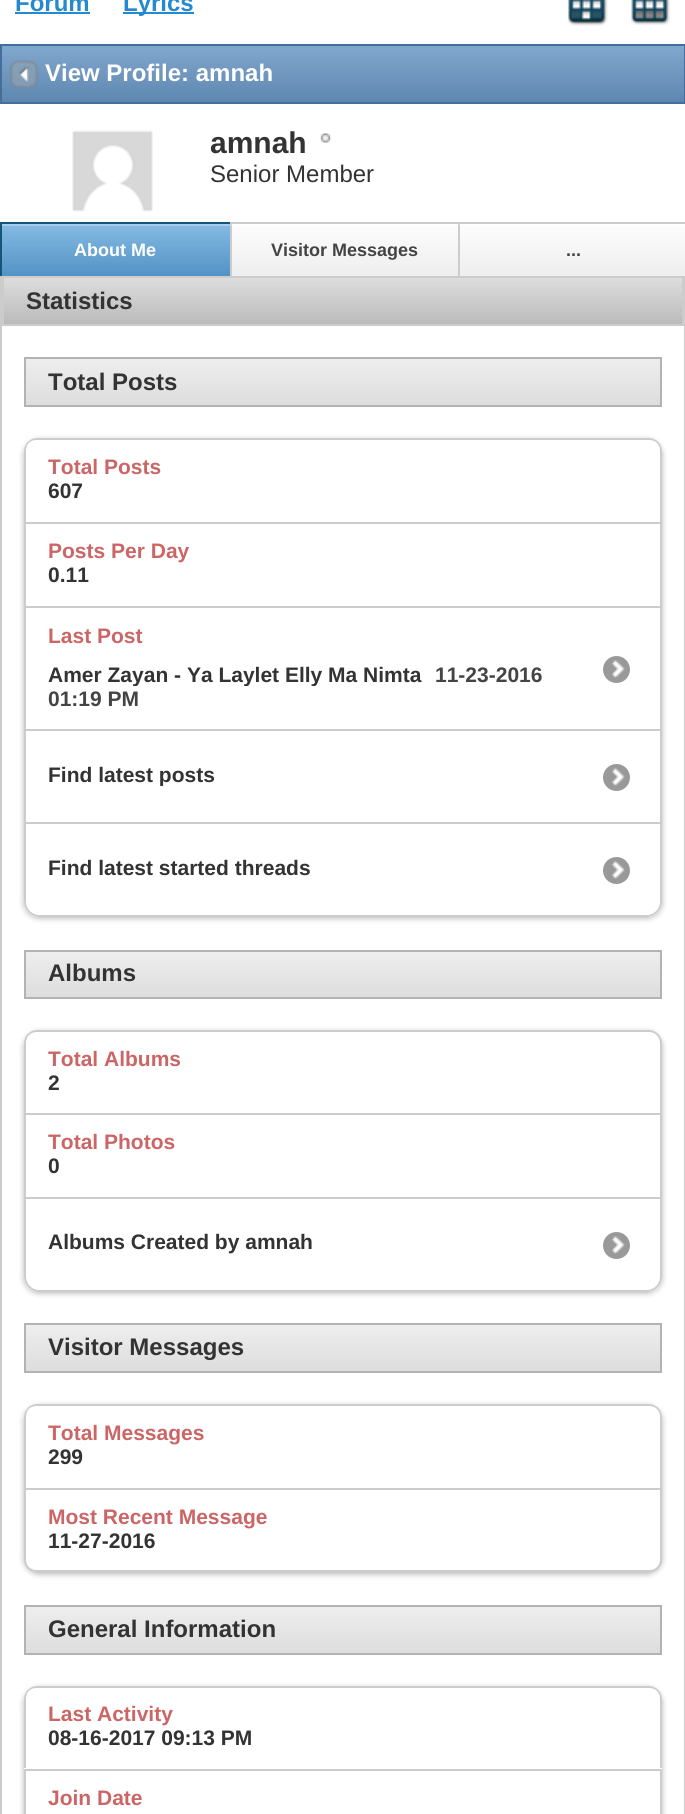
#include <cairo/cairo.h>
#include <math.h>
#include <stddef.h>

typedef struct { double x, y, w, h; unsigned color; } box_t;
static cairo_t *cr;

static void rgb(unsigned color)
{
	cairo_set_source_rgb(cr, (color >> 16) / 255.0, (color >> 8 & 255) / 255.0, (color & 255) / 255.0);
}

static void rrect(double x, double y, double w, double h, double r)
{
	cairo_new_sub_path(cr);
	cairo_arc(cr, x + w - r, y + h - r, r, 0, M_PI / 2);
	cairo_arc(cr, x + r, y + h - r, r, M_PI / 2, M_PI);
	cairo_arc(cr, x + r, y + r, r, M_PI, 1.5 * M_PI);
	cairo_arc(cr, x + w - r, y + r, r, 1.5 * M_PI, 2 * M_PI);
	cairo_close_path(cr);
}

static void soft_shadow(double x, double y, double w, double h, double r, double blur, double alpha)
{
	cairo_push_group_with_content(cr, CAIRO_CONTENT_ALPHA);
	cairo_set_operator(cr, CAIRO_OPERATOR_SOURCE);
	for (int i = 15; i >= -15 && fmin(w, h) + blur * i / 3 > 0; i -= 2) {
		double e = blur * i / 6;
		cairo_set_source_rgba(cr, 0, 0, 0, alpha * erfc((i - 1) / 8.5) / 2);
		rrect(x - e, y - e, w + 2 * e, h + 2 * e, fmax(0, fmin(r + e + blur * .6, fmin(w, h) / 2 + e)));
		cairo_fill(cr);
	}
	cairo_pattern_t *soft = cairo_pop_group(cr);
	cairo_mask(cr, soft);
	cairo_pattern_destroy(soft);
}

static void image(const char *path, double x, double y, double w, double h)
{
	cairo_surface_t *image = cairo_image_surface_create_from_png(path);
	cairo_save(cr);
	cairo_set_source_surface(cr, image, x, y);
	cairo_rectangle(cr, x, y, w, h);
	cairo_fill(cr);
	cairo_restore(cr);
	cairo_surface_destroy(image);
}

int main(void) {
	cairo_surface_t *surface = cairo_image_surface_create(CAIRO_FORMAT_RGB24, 685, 1814);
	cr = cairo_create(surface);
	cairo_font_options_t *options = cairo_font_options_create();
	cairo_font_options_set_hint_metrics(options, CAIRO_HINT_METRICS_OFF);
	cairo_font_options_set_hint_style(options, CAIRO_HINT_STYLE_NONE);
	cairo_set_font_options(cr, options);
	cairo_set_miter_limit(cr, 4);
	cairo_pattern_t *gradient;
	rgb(0xffffff);
	cairo_paint(cr);
	rgb(0x2489ce);
	cairo_rectangle(cr, 15, 12, 75, 2);
	cairo_fill(cr);
	cairo_rectangle(cr, 123, 12, 71, 2);
	cairo_fill(cr);
	image("img/1.png", 567, 0, 41, 26);
	image("img/2.png", 631, 0, 39, 25);
	gradient = cairo_pattern_create_linear(343, 45, 343, 102);
	cairo_pattern_add_color_stop_rgba(gradient, 0, 0.506, 0.659, 0.808, 1);
	cairo_pattern_add_color_stop_rgba(gradient, 1, 0.369, 0.529, 0.69, 1);
	cairo_set_source(cr, gradient);
	cairo_pattern_destroy(gradient);
	cairo_rectangle(cr, 2, 46, 682, 56);
	cairo_fill(cr);
	cairo_rectangle(cr, 1, 45, 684, 58);
	rgb(0x456f9a);
	cairo_stroke(cr);
	image("img/3.png", 9, 60, 29, 29);
	image("img/4.png", 72, 130, 81, 82);
	image("img/5.png", 320, 133, 11, 10);
	gradient = cairo_pattern_create_linear(116, 224, 116, 276);
	cairo_pattern_add_color_stop_rgba(gradient, 0, 0.522, 0.729, 0.894, 1);
	cairo_pattern_add_color_stop_rgba(gradient, 1, 0.325, 0.576, 0.773, 1);
	cairo_set_source(cr, gradient);
	cairo_pattern_destroy(gradient);
	cairo_rectangle(cr, 2, 226, 228, 50);
	cairo_fill(cr);
	{
		static const box_t items[] = {
			{0, 222, 230, 2, 0x155678},
			{0, 222, 2, 56, 0x155678},
			{2, 224, 228, 2, 0xa9ceec},
		};
		for (size_t i = 0; i < sizeof items / sizeof *items; i++) {
			rgb(items[i].color);
			cairo_rectangle(cr, items[i].x, items[i].y, items[i].w, items[i].h);
			cairo_fill(cr);
		}
	}
	gradient = cairo_pattern_create_linear(344, 224, 344, 276);
	cairo_pattern_add_color_stop_rgba(gradient, 0, 0.992, 0.992, 0.992, 1);
	cairo_pattern_add_color_stop_rgba(gradient, 1, 0.933, 0.933, 0.933, 1);
	cairo_set_source(cr, gradient);
	cairo_pattern_destroy(gradient);
	cairo_rectangle(cr, 232, 226, 226, 50);
	cairo_fill(cr);
	{
		static const box_t items[] = {
			{230, 222, 455, 2, 0xcccccc},
			{230, 222, 2, 56, 0xcccccc},
			{231, 224, 1, 2, 0xdbdbdb},
		};
		for (size_t i = 0; i < sizeof items / sizeof *items; i++) {
			rgb(items[i].color);
			cairo_rectangle(cr, items[i].x, items[i].y, items[i].w, items[i].h);
			cairo_fill(cr);
		}
	}
	gradient = cairo_pattern_create_linear(573, 224, 573, 276);
	cairo_pattern_add_color_stop_rgba(gradient, 0, 0.992, 0.992, 0.992, 1);
	cairo_pattern_add_color_stop_rgba(gradient, 1, 0.933, 0.933, 0.933, 1);
	cairo_set_source(cr, gradient);
	cairo_pattern_destroy(gradient);
	cairo_rectangle(cr, 460, 226, 225, 50);
	cairo_fill(cr);
	rgb(0xcccccc);
	cairo_rectangle(cr, 458, 222, 2, 56);
	cairo_fill(cr);
	rgb(0xdbdbdb);
	cairo_rectangle(cr, 459, 224, 1, 2);
	cairo_fill(cr);
	cairo_rectangle(cr, 1, 277, 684, 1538);
	rgb(0xcccccc);
	cairo_stroke(cr);
	gradient = cairo_pattern_create_linear(343, 277, 343, 324);
	cairo_pattern_add_color_stop_rgba(gradient, 0, 0.867, 0.867, 0.867, 1);
	cairo_pattern_add_color_stop_rgba(gradient, 1, 0.733, 0.733, 0.733, 1);
	cairo_set_source(cr, gradient);
	cairo_pattern_destroy(gradient);
	cairo_rectangle(cr, 4, 278, 678, 46);
	cairo_fill(cr);
	cairo_save(cr);
	cairo_rectangle(cr, 2, 278, 682, 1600);
	cairo_clip(cr);
	cairo_rectangle(cr, 3, 277, 680, 48);
	rgb(0xcccccc);
	cairo_stroke(cr);
	cairo_restore(cr);
	gradient = cairo_pattern_create_linear(343, 358, 343, 405);
	cairo_pattern_add_color_stop_rgba(gradient, 0, 0.933, 0.933, 0.933, 1);
	cairo_pattern_add_color_stop_rgba(gradient, 1, 0.867, 0.867, 0.867, 1);
	cairo_set_source(cr, gradient);
	cairo_pattern_destroy(gradient);
	cairo_rectangle(cr, 26, 359, 634, 46);
	cairo_fill(cr);
	cairo_rectangle(cr, 25, 358, 636, 48);
	rgb(0xb3b3b3);
	cairo_stroke(cr);
	cairo_save(cr);
	cairo_set_fill_rule(cr, CAIRO_FILL_RULE_EVEN_ODD);
	cairo_new_path(cr);
	cairo_move_to(cr, 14, 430);
	cairo_line_to(cr, 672, 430);
	cairo_line_to(cr, 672, 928);
	cairo_line_to(cr, 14, 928);
	cairo_close_path(cr);
	cairo_move_to(cr, 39, 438);
	cairo_line_to(cr, 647, 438);
	cairo_curve_to(cr, 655.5, 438, 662, 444.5, 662, 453);
	cairo_line_to(cr, 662, 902);
	cairo_curve_to(cr, 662, 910.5, 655.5, 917, 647, 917);
	cairo_line_to(cr, 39, 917);
	cairo_curve_to(cr, 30.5, 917, 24, 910.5, 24, 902);
	cairo_line_to(cr, 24, 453);
	cairo_curve_to(cr, 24, 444.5, 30.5, 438, 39, 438);
	cairo_close_path(cr);
	cairo_clip(cr);
	rgb(0x000000);
	soft_shadow(24, 440, 638, 478, 15, 3, 0.3);
	cairo_restore(cr);
	rgb(0xcccccc);
	cairo_set_fill_rule(cr, CAIRO_FILL_RULE_EVEN_ODD);
	cairo_new_path(cr);
	cairo_move_to(cr, 37, 438);
	cairo_line_to(cr, 649, 438);
	cairo_curve_to(cr, 656, 438, 662, 444, 662, 451);
	cairo_line_to(cr, 662, 522);
	cairo_line_to(cr, 24, 522);
	cairo_line_to(cr, 24, 451);
	cairo_curve_to(cr, 24, 444, 30, 438, 37, 438);
	cairo_close_path(cr);
	cairo_move_to(cr, 37, 440);
	cairo_line_to(cr, 649, 440);
	cairo_curve_to(cr, 655, 440, 660, 444, 660, 451);
	cairo_line_to(cr, 660, 522);
	cairo_line_to(cr, 26, 522);
	cairo_line_to(cr, 26, 451);
	cairo_curve_to(cr, 26, 444, 30, 440, 37, 440);
	cairo_close_path(cr);
	cairo_fill(cr);
	{
		static const box_t items[] = {
			{24, 522, 638, 2, 0xcccccc},
			{660, 522, 2, 84, 0xcccccc},
			{24, 522, 2, 84, 0xcccccc},
			{24, 606, 638, 2, 0xcccccc},
			{660, 606, 2, 123, 0xcccccc},
			{24, 606, 2, 123, 0xcccccc},
		};
		for (size_t i = 0; i < sizeof items / sizeof *items; i++) {
			rgb(items[i].color);
			cairo_rectangle(cr, items[i].x, items[i].y, items[i].w, items[i].h);
			cairo_fill(cr);
		}
	}
	rgb(0x999999);
	cairo_arc(cr, 616.5, 669.5, 13.5, 0, 2 * M_PI);
	cairo_fill(cr);
	image("img/6.png", 611, 659, 14, 19);
	{
		static const box_t items[] = {
			{24, 729, 638, 2, 0xcccccc},
			{660, 729, 2, 93, 0xcccccc},
			{24, 729, 2, 93, 0xcccccc},
		};
		for (size_t i = 0; i < sizeof items / sizeof *items; i++) {
			rgb(items[i].color);
			cairo_rectangle(cr, items[i].x, items[i].y, items[i].w, items[i].h);
			cairo_fill(cr);
		}
	}
	rgb(0x999999);
	cairo_arc(cr, 616.5, 777.5, 13.5, 0, 2 * M_PI);
	cairo_fill(cr);
	image("img/6.png", 611, 767, 14, 19);
	cairo_new_path(cr);
	cairo_move_to(cr, 25, 823);
	cairo_line_to(cr, 661, 823);
	cairo_line_to(cr, 661, 902);
	cairo_curve_to(cr, 661, 909.5, 654.5, 916, 647, 916);
	cairo_line_to(cr, 39, 916);
	cairo_curve_to(cr, 31.5, 916, 25, 909.5, 25, 902);
	cairo_close_path(cr);
	rgb(0xcccccc);
	cairo_stroke(cr);
	rgb(0x999999);
	cairo_arc(cr, 616.5, 870.5, 13.5, 0, 2 * M_PI);
	cairo_fill(cr);
	image("img/6.png", 611, 860, 14, 19);
	gradient = cairo_pattern_create_linear(343, 951, 343, 998);
	cairo_pattern_add_color_stop_rgba(gradient, 0, 0.933, 0.933, 0.933, 1);
	cairo_pattern_add_color_stop_rgba(gradient, 1, 0.867, 0.867, 0.867, 1);
	cairo_set_source(cr, gradient);
	cairo_pattern_destroy(gradient);
	cairo_rectangle(cr, 26, 952, 634, 45);
	cairo_fill(cr);
	cairo_rectangle(cr, 25, 951, 636, 47);
	rgb(0xb3b3b3);
	cairo_stroke(cr);
	cairo_save(cr);
	cairo_new_path(cr);
	cairo_move_to(cr, 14, 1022);
	cairo_line_to(cr, 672, 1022);
	cairo_line_to(cr, 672, 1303);
	cairo_line_to(cr, 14, 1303);
	cairo_close_path(cr);
	cairo_move_to(cr, 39, 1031);
	cairo_line_to(cr, 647, 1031);
	cairo_curve_to(cr, 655.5, 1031, 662, 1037.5, 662, 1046);
	cairo_line_to(cr, 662, 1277);
	cairo_curve_to(cr, 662, 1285.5, 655.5, 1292, 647, 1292);
	cairo_line_to(cr, 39, 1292);
	cairo_curve_to(cr, 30.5, 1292, 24, 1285.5, 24, 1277);
	cairo_line_to(cr, 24, 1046);
	cairo_curve_to(cr, 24, 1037.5, 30.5, 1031, 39, 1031);
	cairo_close_path(cr);
	cairo_clip(cr);
	rgb(0x000000);
	soft_shadow(24, 1032, 638, 261, 15, 3, 0.3);
	cairo_restore(cr);
	rgb(0xcccccc);
	cairo_new_path(cr);
	cairo_move_to(cr, 37, 1030);
	cairo_line_to(cr, 649, 1030);
	cairo_curve_to(cr, 656, 1030, 662, 1036, 662, 1043);
	cairo_line_to(cr, 662, 1113);
	cairo_line_to(cr, 24, 1113);
	cairo_line_to(cr, 24, 1043);
	cairo_curve_to(cr, 24, 1036, 30, 1030, 37, 1030);
	cairo_close_path(cr);
	cairo_move_to(cr, 37, 1032);
	cairo_line_to(cr, 649, 1032);
	cairo_curve_to(cr, 655, 1032, 660, 1037, 660, 1043);
	cairo_line_to(cr, 660, 1113);
	cairo_line_to(cr, 26, 1113);
	cairo_line_to(cr, 26, 1043);
	cairo_curve_to(cr, 26, 1037, 30, 1032, 37, 1032);
	cairo_close_path(cr);
	cairo_fill(cr);
	{
		static const box_t items[] = {
			{24, 1113, 638, 2, 0xcccccc},
			{660, 1113, 2, 84, 0xcccccc},
			{24, 1113, 2, 84, 0xcccccc},
		};
		for (size_t i = 0; i < sizeof items / sizeof *items; i++) {
			rgb(items[i].color);
			cairo_rectangle(cr, items[i].x, items[i].y, items[i].w, items[i].h);
			cairo_fill(cr);
		}
	}
	cairo_new_path(cr);
	cairo_move_to(cr, 25, 1198);
	cairo_line_to(cr, 661, 1198);
	cairo_line_to(cr, 661, 1277);
	cairo_curve_to(cr, 661, 1284.5, 654.5, 1291, 647, 1291);
	cairo_line_to(cr, 39, 1291);
	cairo_curve_to(cr, 31.5, 1291, 25, 1284.5, 25, 1277);
	cairo_close_path(cr);
	cairo_stroke(cr);
	rgb(0x999999);
	cairo_arc(cr, 616.5, 1245.5, 13.5, 0, 2 * M_PI);
	cairo_fill(cr);
	image("img/6.png", 611, 1235, 14, 19);
	gradient = cairo_pattern_create_linear(343, 1325, 343, 1371);
	cairo_pattern_add_color_stop_rgba(gradient, 0, 0.933, 0.933, 0.933, 1);
	cairo_pattern_add_color_stop_rgba(gradient, 1, 0.867, 0.867, 0.867, 1);
	cairo_set_source(cr, gradient);
	cairo_pattern_destroy(gradient);
	cairo_rectangle(cr, 26, 1325, 634, 46);
	cairo_fill(cr);
	cairo_rectangle(cr, 25, 1324, 636, 48);
	rgb(0xb3b3b3);
	cairo_stroke(cr);
	cairo_save(cr);
	cairo_new_path(cr);
	cairo_move_to(cr, 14, 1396);
	cairo_line_to(cr, 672, 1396);
	cairo_line_to(cr, 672, 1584);
	cairo_line_to(cr, 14, 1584);
	cairo_close_path(cr);
	cairo_move_to(cr, 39, 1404);
	cairo_line_to(cr, 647, 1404);
	cairo_curve_to(cr, 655.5, 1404, 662, 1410.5, 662, 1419);
	cairo_line_to(cr, 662, 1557);
	cairo_curve_to(cr, 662, 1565.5, 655.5, 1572, 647, 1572);
	cairo_line_to(cr, 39, 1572);
	cairo_curve_to(cr, 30.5, 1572, 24, 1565.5, 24, 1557);
	cairo_line_to(cr, 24, 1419);
	cairo_curve_to(cr, 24, 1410.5, 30.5, 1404, 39, 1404);
	cairo_close_path(cr);
	cairo_clip(cr);
	rgb(0x000000);
	soft_shadow(24, 1406, 638, 168, 15, 3, 0.3);
	cairo_restore(cr);
	rgb(0xcccccc);
	cairo_new_path(cr);
	cairo_move_to(cr, 37, 1404);
	cairo_line_to(cr, 649, 1404);
	cairo_curve_to(cr, 656, 1404, 662, 1410, 662, 1417);
	cairo_line_to(cr, 662, 1488);
	cairo_line_to(cr, 24, 1488);
	cairo_line_to(cr, 24, 1417);
	cairo_curve_to(cr, 24, 1410, 30, 1404, 37, 1404);
	cairo_close_path(cr);
	cairo_move_to(cr, 37, 1406);
	cairo_line_to(cr, 649, 1406);
	cairo_curve_to(cr, 655, 1406, 660, 1410, 660, 1417);
	cairo_line_to(cr, 660, 1488);
	cairo_line_to(cr, 26, 1488);
	cairo_line_to(cr, 26, 1417);
	cairo_curve_to(cr, 26, 1410, 30, 1406, 37, 1406);
	cairo_close_path(cr);
	cairo_fill(cr);
	rgb(0xffffff);
	cairo_new_path(cr);
	cairo_move_to(cr, 25, 1489);
	cairo_line_to(cr, 661, 1489);
	cairo_line_to(cr, 661, 1560);
	cairo_curve_to(cr, 661, 1566, 656, 1571, 650, 1571);
	cairo_line_to(cr, 36, 1571);
	cairo_curve_to(cr, 30, 1571, 25, 1566, 25, 1560);
	cairo_close_path(cr);
	cairo_fill_preserve(cr);
	rgb(0xcccccc);
	cairo_stroke(cr);
	gradient = cairo_pattern_create_linear(343, 1607, 343, 1653);
	cairo_pattern_add_color_stop_rgba(gradient, 0, 0.933, 0.933, 0.933, 1);
	cairo_pattern_add_color_stop_rgba(gradient, 1, 0.867, 0.867, 0.867, 1);
	cairo_set_source(cr, gradient);
	cairo_pattern_destroy(gradient);
	cairo_rectangle(cr, 26, 1607, 634, 46);
	cairo_fill(cr);
	cairo_rectangle(cr, 25, 1606, 636, 48);
	rgb(0xb3b3b3);
	cairo_stroke(cr);
	cairo_save(cr);
	cairo_new_path(cr);
	cairo_move_to(cr, 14, 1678);
	cairo_line_to(cr, 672, 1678);
	cairo_line_to(cr, 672, 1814);
	cairo_line_to(cr, 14, 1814);
	cairo_close_path(cr);
	cairo_move_to(cr, 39, 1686);
	cairo_line_to(cr, 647, 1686);
	cairo_curve_to(cr, 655.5, 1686, 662, 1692.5, 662, 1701);
	cairo_line_to(cr, 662, 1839);
	cairo_curve_to(cr, 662, 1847.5, 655.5, 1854, 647, 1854);
	cairo_line_to(cr, 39, 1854);
	cairo_curve_to(cr, 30.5, 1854, 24, 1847.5, 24, 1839);
	cairo_line_to(cr, 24, 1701);
	cairo_curve_to(cr, 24, 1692.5, 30.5, 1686, 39, 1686);
	cairo_close_path(cr);
	cairo_clip(cr);
	rgb(0x000000);
	soft_shadow(24, 1688, 638, 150, 15, 3, 0.3);
	cairo_restore(cr);
	rgb(0xcccccc);
	cairo_new_path(cr);
	cairo_move_to(cr, 37, 1686);
	cairo_line_to(cr, 649, 1686);
	cairo_curve_to(cr, 656, 1686, 662, 1692, 662, 1699);
	cairo_line_to(cr, 662, 1768);
	cairo_line_to(cr, 24, 1768);
	cairo_line_to(cr, 24, 1699);
	cairo_curve_to(cr, 24, 1692, 30, 1686, 37, 1686);
	cairo_close_path(cr);
	cairo_move_to(cr, 37, 1688);
	cairo_line_to(cr, 649, 1688);
	cairo_curve_to(cr, 655, 1688, 660, 1692, 660, 1699);
	cairo_line_to(cr, 660, 1768);
	cairo_line_to(cr, 26, 1768);
	cairo_line_to(cr, 26, 1699);
	cairo_curve_to(cr, 26, 1692, 30, 1688, 37, 1688);
	cairo_close_path(cr);
	cairo_fill(cr);
	cairo_rectangle(cr, 25, 1770, 636, 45);
	cairo_stroke(cr);
	cairo_select_font_face(cr, "Liberation Sans", CAIRO_FONT_SLANT_NORMAL, CAIRO_FONT_WEIGHT_BOLD);
	cairo_set_font_size(cr, 24);
	rgb(0x2489ce);
	cairo_move_to(cr, 15, 11);
	cairo_show_text(cr, "Forum");
	cairo_move_to(cr, 123, 11);
	cairo_show_text(cr, "Lyrics");
	rgb(0xffffff);
	cairo_move_to(cr, 45, 81);
	cairo_show_text(cr, "View Profile: amnah");
	cairo_set_font_size(cr, 30);
	rgb(0x333333);
	cairo_move_to(cr, 210, 153);
	cairo_show_text(cr, "amnah");
	cairo_select_font_face(cr, "Liberation Sans", CAIRO_FONT_SLANT_NORMAL, CAIRO_FONT_WEIGHT_NORMAL);
	cairo_set_font_size(cr, 24);
	cairo_move_to(cr, 210, 182);
	cairo_show_text(cr, "Senior Member");
	cairo_select_font_face(cr, "Liberation Sans", CAIRO_FONT_SLANT_NORMAL, CAIRO_FONT_WEIGHT_BOLD);
	cairo_set_font_size(cr, 18);
	rgb(0xffffff);
	cairo_move_to(cr, 74, 256);
	cairo_show_text(cr, "About Me");
	rgb(0x444444);
	cairo_move_to(cr, 271, 256);
	cairo_show_text(cr, "Visitor Messages");
	cairo_move_to(cr, 566, 256);
	cairo_show_text(cr, "...");
	cairo_set_font_size(cr, 24);
	rgb(0x333333);
	cairo_move_to(cr, 26, 309);
	cairo_show_text(cr, "Statistics");
	cairo_move_to(cr, 48, 390);
	cairo_show_text(cr, "Total Posts");
	cairo_set_font_size(cr, 21);
	rgb(0xcc6666);
	cairo_move_to(cr, 48, 474);
	cairo_show_text(cr, "Total Posts");
	rgb(0x333333);
	cairo_move_to(cr, 48, 498);
	cairo_show_text(cr, "607");
	rgb(0xcc6666);
	cairo_move_to(cr, 48, 558);
	cairo_show_text(cr, "Posts Per Day");
	rgb(0x333333);
	cairo_move_to(cr, 48, 582);
	cairo_show_text(cr, "0.11");
	rgb(0xcc6666);
	cairo_move_to(cr, 48, 643);
	cairo_show_text(cr, "Last Post");
	cairo_save(cr);
	cairo_set_fill_rule(cr, CAIRO_FILL_RULE_WINDING);
	cairo_rectangle(cr, 48, 648, 381, 38);
	cairo_clip(cr);
	rgb(0x333333);
	cairo_move_to(cr, 48, 682);
	cairo_show_text(cr, "Amer Zayan - Ya Laylet Elly Ma Nimta");
	cairo_restore(cr);
	rgb(0x444444);
	cairo_move_to(cr, 435, 682);
	cairo_show_text(cr, "11-23-2016");
	cairo_move_to(cr, 48, 706);
	cairo_show_text(cr, "01:19 PM");
	cairo_save(cr);
	cairo_set_fill_rule(cr, CAIRO_FILL_RULE_WINDING);
	cairo_rectangle(cr, 48, 747, 174, 39);
	cairo_clip(cr);
	rgb(0x333333);
	cairo_move_to(cr, 48, 782);
	cairo_show_text(cr, "Find latest posts");
	cairo_restore(cr);
	rgb(0x333333);
	cairo_move_to(cr, 48, 875);
	cairo_show_text(cr, "Find latest started threads");
	cairo_set_font_size(cr, 24);
	cairo_move_to(cr, 48, 981);
	cairo_show_text(cr, "Albums");
	cairo_set_font_size(cr, 21);
	rgb(0xcc6666);
	cairo_move_to(cr, 48, 1066);
	cairo_show_text(cr, "Total Albums");
	rgb(0x333333);
	cairo_move_to(cr, 48, 1090);
	cairo_show_text(cr, "2");
	rgb(0xcc6666);
	cairo_move_to(cr, 48, 1149);
	cairo_show_text(cr, "Total Photos");
	rgb(0x333333);
	cairo_move_to(cr, 48, 1173);
	cairo_show_text(cr, "0");
	cairo_move_to(cr, 48, 1249);
	cairo_show_text(cr, "Albums Created by amnah");
	cairo_set_font_size(cr, 24);
	cairo_move_to(cr, 48, 1355);
	cairo_show_text(cr, "Visitor Messages");
	cairo_set_font_size(cr, 21);
	rgb(0xcc6666);
	cairo_move_to(cr, 48, 1440);
	cairo_show_text(cr, "Total Messages");
	rgb(0x333333);
	cairo_move_to(cr, 48, 1464);
	cairo_show_text(cr, "299");
	rgb(0xcc6666);
	cairo_move_to(cr, 48, 1524);
	cairo_show_text(cr, "Most Recent Message");
	rgb(0x333333);
	cairo_move_to(cr, 48, 1548);
	cairo_show_text(cr, "11-27-2016");
	cairo_set_font_size(cr, 24);
	cairo_move_to(cr, 48, 1637);
	cairo_show_text(cr, "General Information");
	cairo_set_font_size(cr, 21);
	rgb(0xcc6666);
	cairo_move_to(cr, 48, 1721);
	cairo_show_text(cr, "Last Activity");
	rgb(0x333333);
	cairo_move_to(cr, 48, 1745);
	cairo_show_text(cr, "08-16-2017 09:13 PM");
	rgb(0xcc6666);
	cairo_move_to(cr, 48, 1805);
	cairo_show_text(cr, "Join Date");
	cairo_surface_write_to_png(surface, "page.png");
	cairo_font_options_destroy(options);
	cairo_destroy(cr);
	cairo_surface_destroy(surface);
	return 0;
}
